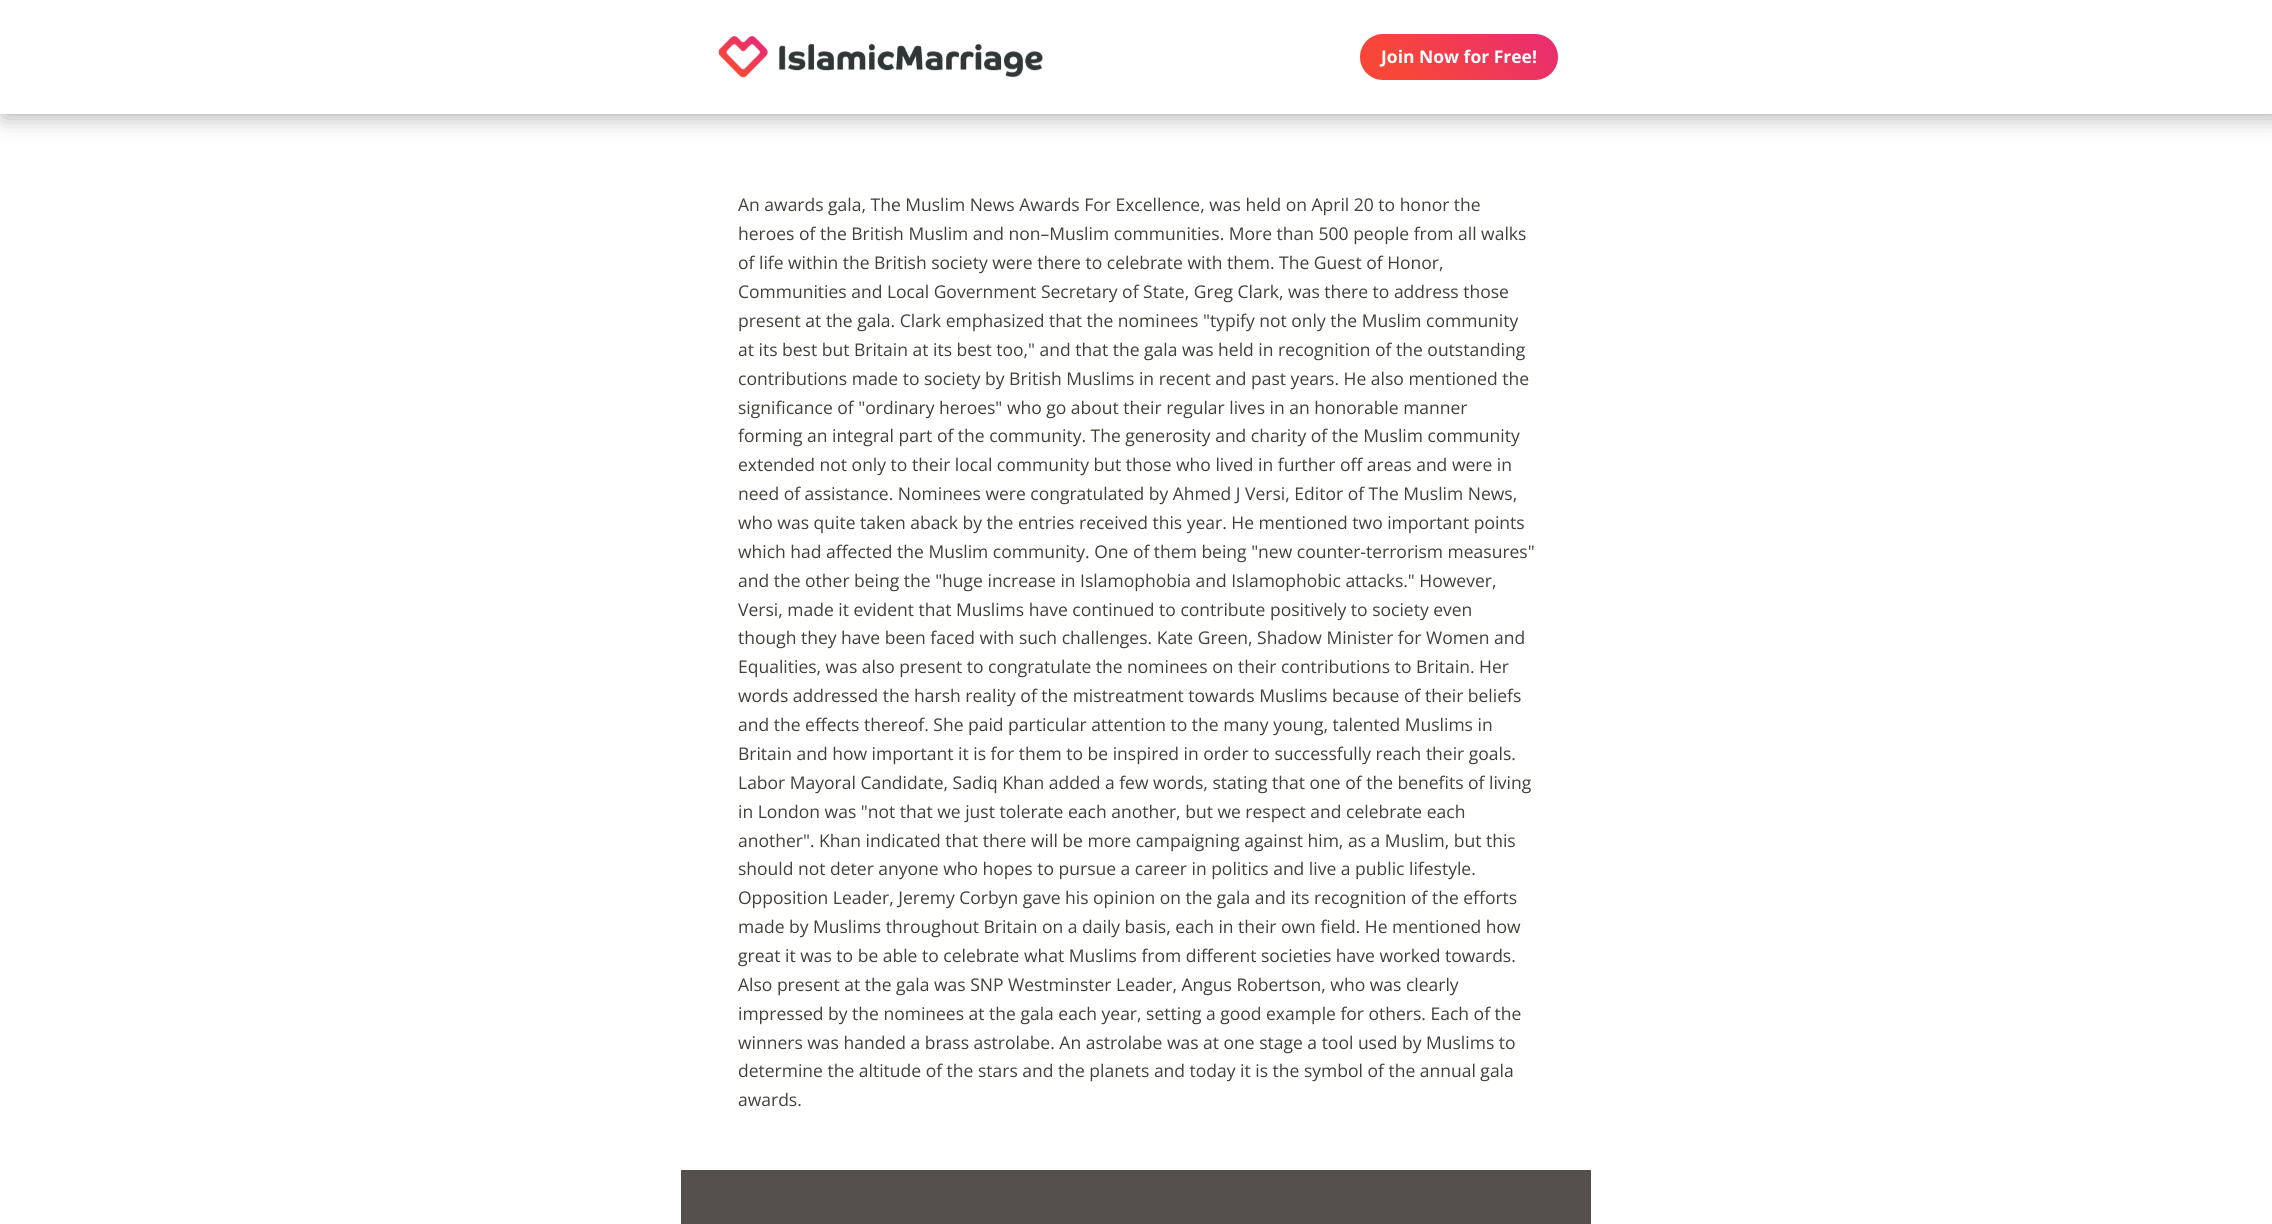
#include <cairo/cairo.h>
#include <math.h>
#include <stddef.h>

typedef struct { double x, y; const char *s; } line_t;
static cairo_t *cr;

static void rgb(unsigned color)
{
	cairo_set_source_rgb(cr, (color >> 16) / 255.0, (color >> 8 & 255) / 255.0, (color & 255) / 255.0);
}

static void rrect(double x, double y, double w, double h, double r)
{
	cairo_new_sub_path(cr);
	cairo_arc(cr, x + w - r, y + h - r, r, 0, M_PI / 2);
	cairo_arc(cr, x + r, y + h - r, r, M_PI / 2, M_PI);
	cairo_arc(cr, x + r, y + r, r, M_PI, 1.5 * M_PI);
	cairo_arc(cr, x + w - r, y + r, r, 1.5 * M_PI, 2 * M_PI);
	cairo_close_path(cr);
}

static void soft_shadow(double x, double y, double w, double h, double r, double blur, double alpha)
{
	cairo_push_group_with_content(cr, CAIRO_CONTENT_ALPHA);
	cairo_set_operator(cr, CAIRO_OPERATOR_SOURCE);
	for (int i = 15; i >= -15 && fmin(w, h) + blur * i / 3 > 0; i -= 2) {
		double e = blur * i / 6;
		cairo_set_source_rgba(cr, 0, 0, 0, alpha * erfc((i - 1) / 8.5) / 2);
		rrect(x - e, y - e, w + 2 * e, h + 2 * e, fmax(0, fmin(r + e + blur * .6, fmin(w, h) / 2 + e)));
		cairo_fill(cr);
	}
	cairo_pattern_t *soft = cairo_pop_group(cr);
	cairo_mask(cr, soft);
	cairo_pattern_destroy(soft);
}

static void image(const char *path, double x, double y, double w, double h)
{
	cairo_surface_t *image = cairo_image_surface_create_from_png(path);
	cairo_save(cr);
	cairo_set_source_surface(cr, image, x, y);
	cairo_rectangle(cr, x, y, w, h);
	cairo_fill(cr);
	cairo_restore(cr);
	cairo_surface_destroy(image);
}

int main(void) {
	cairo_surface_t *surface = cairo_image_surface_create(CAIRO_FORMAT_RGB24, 2272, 1224);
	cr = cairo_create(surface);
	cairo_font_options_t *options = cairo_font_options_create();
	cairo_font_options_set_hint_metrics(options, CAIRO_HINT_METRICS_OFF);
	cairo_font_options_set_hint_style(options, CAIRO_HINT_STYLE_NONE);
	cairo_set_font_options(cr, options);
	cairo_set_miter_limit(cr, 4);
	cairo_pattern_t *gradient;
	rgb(0xffffff);
	cairo_paint(cr);
	rgb(0x000000);
	soft_shadow(4, 0, 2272, 114, 0, 12.5, 0.4);
	rgb(0xffffff);
	cairo_rectangle(cr, 0, 0, 2272, 114);
	cairo_fill(cr);
	image("img/1.png", 718, 36, 325, 42);
	gradient = cairo_pattern_create_linear(1398, 118, 1520, -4.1);
	cairo_pattern_add_color_stop_rgba(gradient, 0.2, 0.973, 0.278, 0.224, 1);
	cairo_pattern_add_color_stop_rgba(gradient, 1, 0.91, 0.169, 0.455, 1);
	cairo_set_source(cr, gradient);
	cairo_pattern_destroy(gradient);
	rrect(1360, 34, 198, 46, 23);
	cairo_fill(cr);
	rgb(0x55504c);
	cairo_rectangle(cr, 681, 1170, 910, 54);
	cairo_fill(cr);
	cairo_select_font_face(cr, "Open Sans", CAIRO_FONT_SLANT_NORMAL, CAIRO_FONT_WEIGHT_BOLD);
	cairo_set_font_size(cr, 17.5);
	rgb(0xffffff);
	cairo_move_to(cr, 1381, 63);
	cairo_show_text(cr, "Join Now for Free!");
	cairo_select_font_face(cr, "Open Sans", CAIRO_FONT_SLANT_NORMAL, CAIRO_FONT_WEIGHT_NORMAL);
	rgb(0x433f3a);
	{
		static const line_t items[] = {
			{738, 211, "An awards gala, The Muslim News Awards For Excellence, was held on April 20 to honor the"},
			{738, 240, "heroes of the British Muslim and non–Muslim communities. More than 500 people from all walks"},
			{738, 269, "of life within the British society were there to celebrate with them. The Guest of Honor,"},
			{738, 298, "Communities and Local Government Secretary of State, Greg Clark, was there to address those"},
			{738, 327, "present at the gala. Clark emphasized that the nominees \"typify not only the Muslim community"},
			{738, 356, "at its best but Britain at its best too,\" and that the gala was held in recognition of the outstanding"},
			{738, 385, "contributions made to society by British Muslims in recent and past years. He also mentioned the"},
			{738, 414, "significance of \"ordinary heroes\" who go about their regular lives in an honorable manner"},
			{738, 442, "forming an integral part of the community. The generosity and charity of the Muslim community"},
			{738, 471, "extended not only to their local community but those who lived in further off areas and were in"},
			{738, 500, "need of assistance. Nominees were congratulated by Ahmed J Versi, Editor of The Muslim News,"},
			{738, 529, "who was quite taken aback by the entries received this year. He mentioned two important points"},
			{738, 558, "which had affected the Muslim community. One of them being \"new counter-terrorism measures\""},
			{738, 587, "and the other being the \"huge increase in Islamophobia and Islamophobic attacks.\" However,"},
			{738, 616, "Versi, made it evident that Muslims have continued to contribute positively to society even"},
			{738, 644, "though they have been faced with such challenges. Kate Green, Shadow Minister for Women and"},
			{738, 673, "Equalities, was also present to congratulate the nominees on their contributions to Britain. Her"},
			{738, 702, "words addressed the harsh reality of the mistreatment towards Muslims because of their beliefs"},
			{738, 731, "and the effects thereof. She paid particular attention to the many young, talented Muslims in"},
			{738, 760, "Britain and how important it is for them to be inspired in order to successfully reach their goals."},
			{738, 789, "Labor Mayoral Candidate, Sadiq Khan added a few words, stating that one of the benefits of living"},
			{738, 818, "in London was \"not that we just tolerate each another, but we respect and celebrate each"},
			{738, 847, "another\". Khan indicated that there will be more campaigning against him, as a Muslim, but this"},
			{738, 875, "should not deter anyone who hopes to pursue a career in politics and live a public lifestyle."},
			{738, 904, "Opposition Leader, Jeremy Corbyn gave his opinion on the gala and its recognition of the efforts"},
			{738, 933, "made by Muslims throughout Britain on a daily basis, each in their own field. He mentioned how"},
			{738, 962, "great it was to be able to celebrate what Muslims from different societies have worked towards."},
			{738, 991, "Also present at the gala was SNP Westminster Leader, Angus Robertson, who was clearly"},
			{738, 1020, "impressed by the nominees at the gala each year, setting a good example for others. Each of the"},
			{738, 1049, "winners was handed a brass astrolabe. An astrolabe was at one stage a tool used by Muslims to"},
			{738, 1077, "determine the altitude of the stars and the planets and today it is the symbol of the annual gala"},
			{738, 1106, "awards."},
		};
		for (size_t i = 0; i < sizeof items / sizeof *items; i++) {
			cairo_move_to(cr, items[i].x, items[i].y);
			cairo_show_text(cr, items[i].s);
		}
	}
	cairo_surface_write_to_png(surface, "page.png");
	cairo_font_options_destroy(options);
	cairo_destroy(cr);
	cairo_surface_destroy(surface);
	return 0;
}
